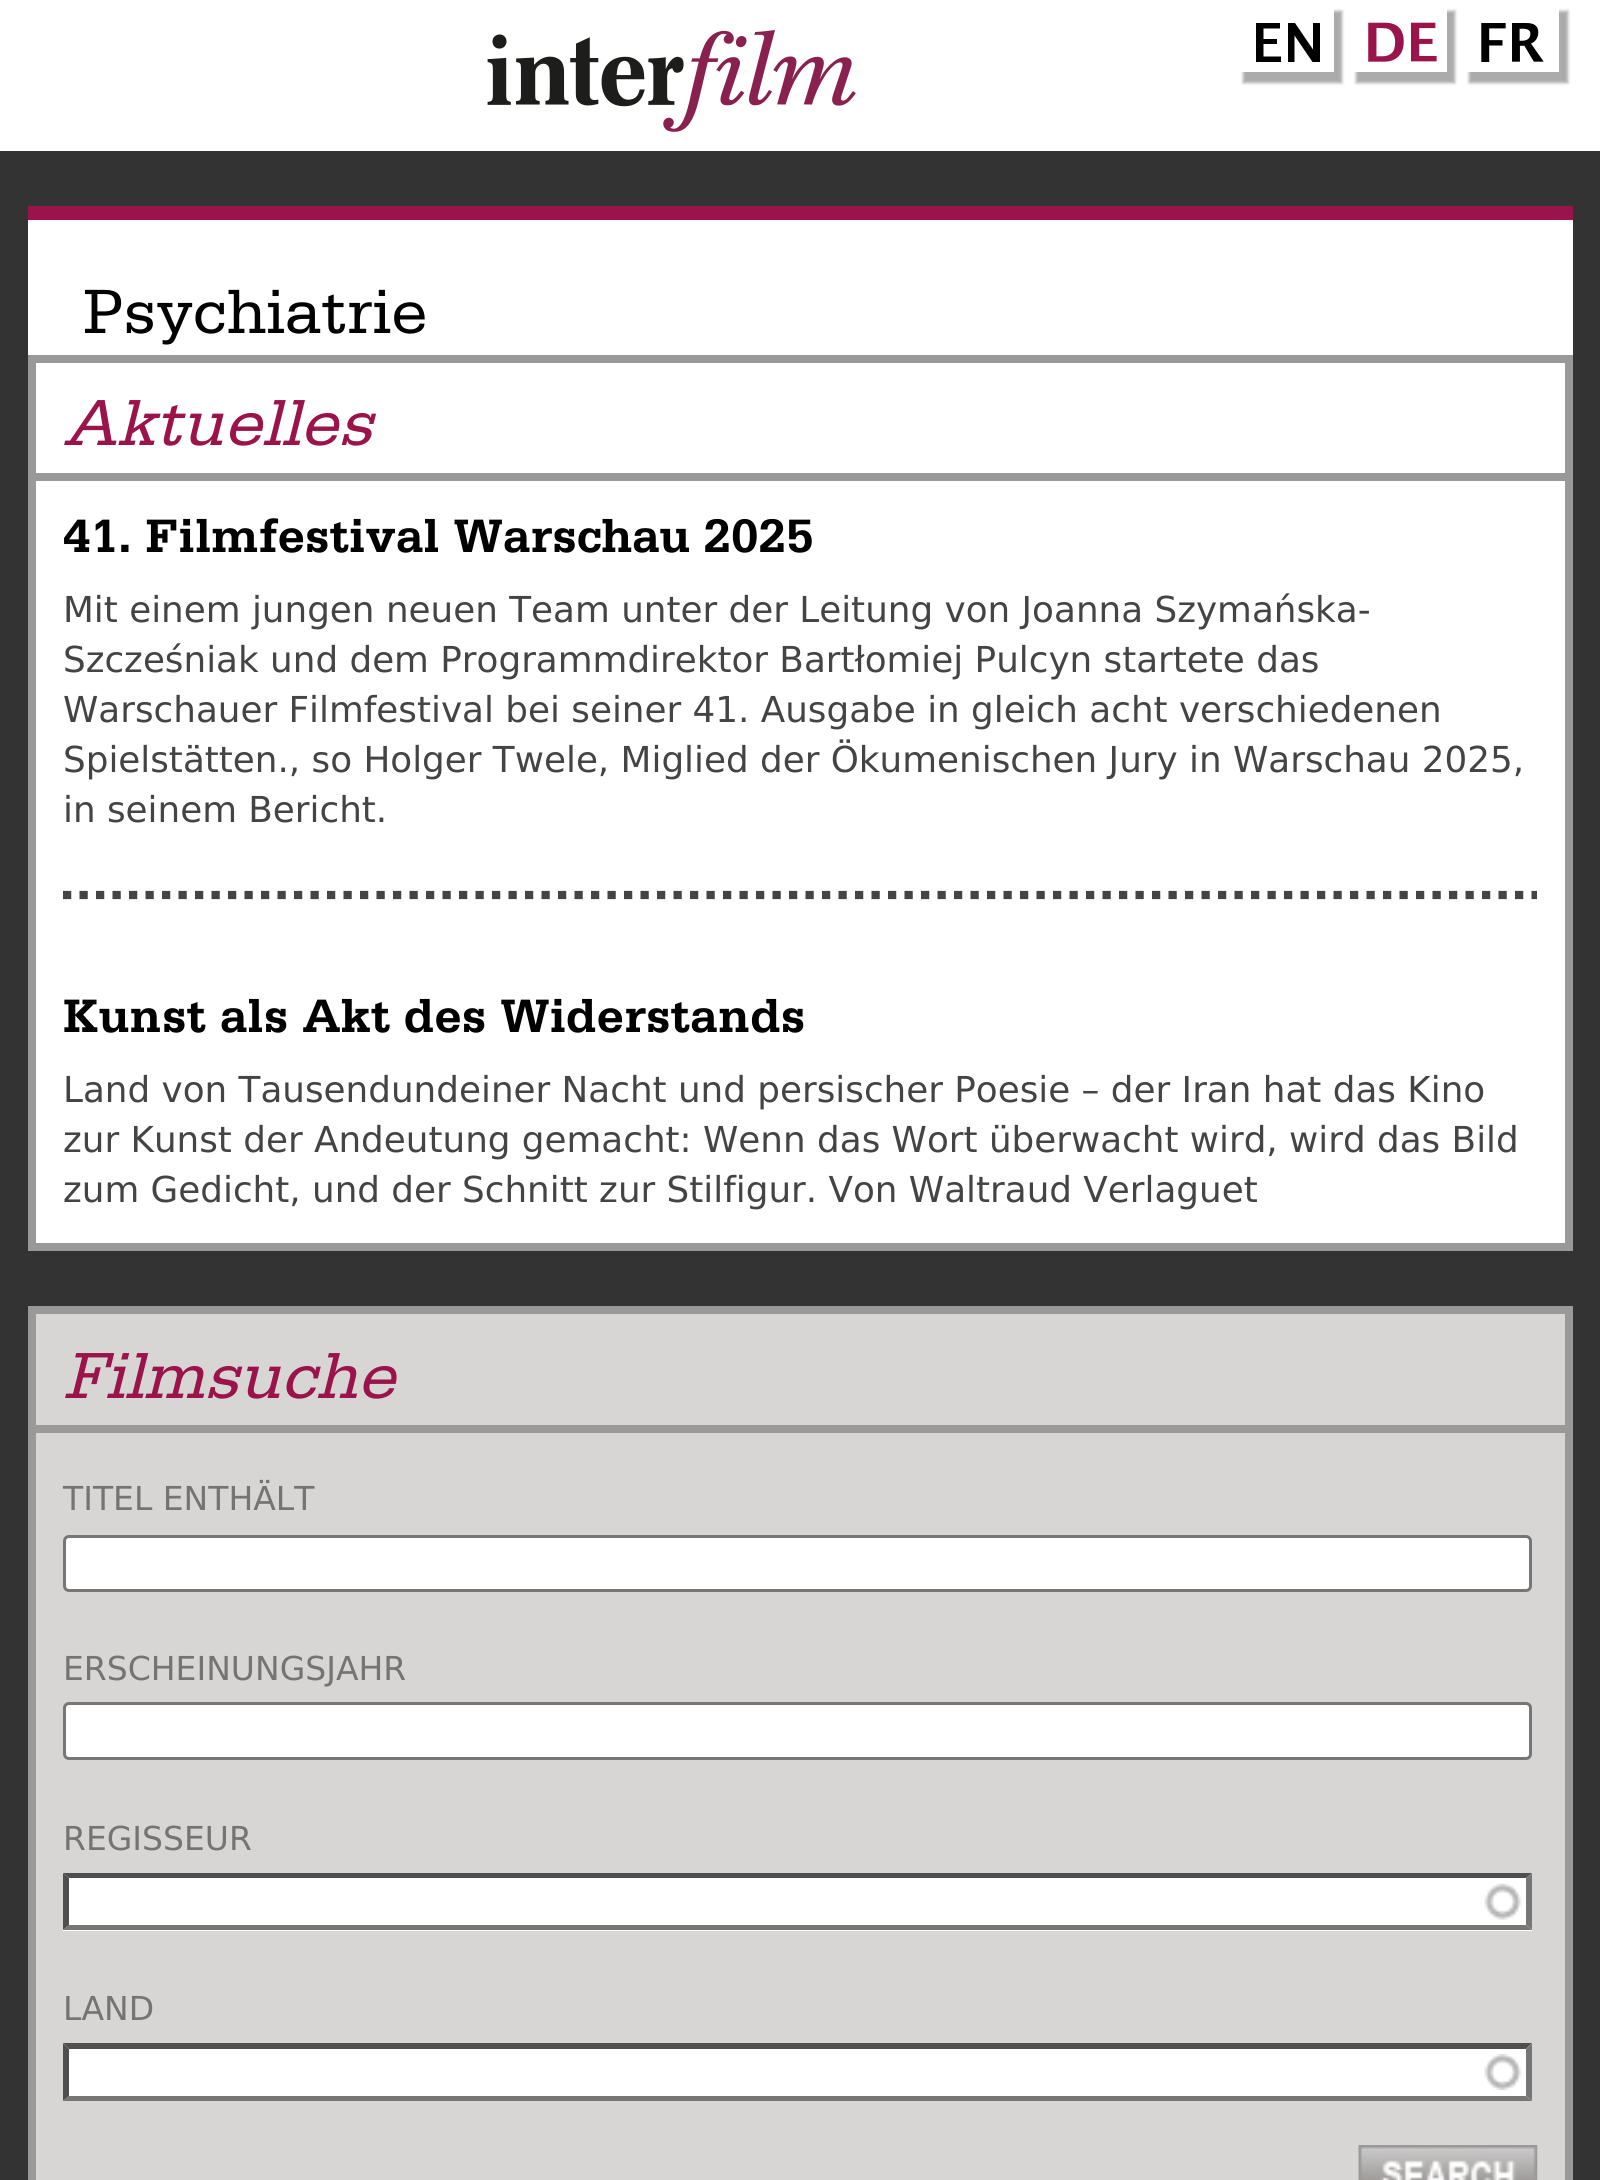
#include <cairo/cairo.h>
#include <math.h>
#include <stddef.h>

typedef struct { double x, y; const char *s; } line_t;
static cairo_t *cr;

static void rgb(unsigned color)
{
	cairo_set_source_rgb(cr, (color >> 16) / 255.0, (color >> 8 & 255) / 255.0, (color & 255) / 255.0);
}

static void rrect(double x, double y, double w, double h, double r)
{
	cairo_new_sub_path(cr);
	cairo_arc(cr, x + w - r, y + h - r, r, 0, M_PI / 2);
	cairo_arc(cr, x + r, y + h - r, r, M_PI / 2, M_PI);
	cairo_arc(cr, x + r, y + r, r, M_PI, 1.5 * M_PI);
	cairo_arc(cr, x + w - r, y + r, r, 1.5 * M_PI, 2 * M_PI);
	cairo_close_path(cr);
}

static void soft_shadow(double x, double y, double w, double h, double r, double blur, double alpha)
{
	cairo_push_group_with_content(cr, CAIRO_CONTENT_ALPHA);
	cairo_set_operator(cr, CAIRO_OPERATOR_SOURCE);
	for (int i = 15; i >= -15 && fmin(w, h) + blur * i / 3 > 0; i -= 2) {
		double e = blur * i / 6;
		cairo_set_source_rgba(cr, 0, 0, 0, alpha * erfc((i - 1) / 8.5) / 2);
		rrect(x - e, y - e, w + 2 * e, h + 2 * e, fmax(0, fmin(r + e + blur * .6, fmin(w, h) / 2 + e)));
		cairo_fill(cr);
	}
	cairo_pattern_t *soft = cairo_pop_group(cr);
	cairo_mask(cr, soft);
	cairo_pattern_destroy(soft);
}

static void image(const char *path, double x, double y, double w, double h)
{
	cairo_surface_t *image = cairo_image_surface_create_from_png(path);
	cairo_save(cr);
	cairo_set_source_surface(cr, image, x, y);
	cairo_rectangle(cr, x, y, w, h);
	cairo_fill(cr);
	cairo_restore(cr);
	cairo_surface_destroy(image);
}

int main(void) {
	cairo_surface_t *surface = cairo_image_surface_create(CAIRO_FORMAT_RGB24, 1600, 2180);
	cr = cairo_create(surface);
	cairo_font_options_t *options = cairo_font_options_create();
	cairo_font_options_set_hint_metrics(options, CAIRO_HINT_METRICS_OFF);
	cairo_font_options_set_hint_style(options, CAIRO_HINT_STYLE_NONE);
	cairo_set_font_options(cr, options);
	cairo_set_miter_limit(cr, 4);
	rgb(0x333333);
	cairo_paint(cr);
	rgb(0xffffff);
	cairo_rectangle(cr, 0, 0, 1600, 151);
	cairo_fill(cr);
	image("img/1.png", 487, 30, 369, 102);
	cairo_save(cr);
	cairo_set_fill_rule(cr, CAIRO_FILL_RULE_EVEN_ODD);
	cairo_new_path(cr);
	cairo_move_to(cr, 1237, 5);
	cairo_line_to(cr, 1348, 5);
	cairo_line_to(cr, 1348, 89);
	cairo_line_to(cr, 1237, 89);
	cairo_close_path(cr);
	cairo_move_to(cr, 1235, 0);
	cairo_line_to(cr, 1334, 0);
	cairo_line_to(cr, 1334, 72);
	cairo_line_to(cr, 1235, 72);
	cairo_close_path(cr);
	cairo_clip(cr);
	rgb(0xababab);
	soft_shadow(1243, 11, 99, 72, 0, 1.5, 1);
	cairo_restore(cr);
	rgb(0x000000);
	cairo_new_path(cr);
	cairo_move_to(cr, 1256, 62);
	cairo_line_to(cr, 1256, 23);
	cairo_line_to(cr, 1280, 23);
	cairo_line_to(cr, 1280, 28.5);
	cairo_line_to(cr, 1263.5, 28.5);
	cairo_line_to(cr, 1263.5, 39);
	cairo_line_to(cr, 1277, 39);
	cairo_line_to(cr, 1277, 44);
	cairo_line_to(cr, 1263.5, 44);
	cairo_line_to(cr, 1263.5, 56.5);
	cairo_line_to(cr, 1281, 56.5);
	cairo_line_to(cr, 1281, 62);
	cairo_close_path(cr);
	cairo_fill(cr);
	cairo_new_path(cr);
	cairo_move_to(cr, 1288, 62);
	cairo_line_to(cr, 1288, 23);
	cairo_line_to(cr, 1295, 23);
	cairo_line_to(cr, 1313, 49.5);
	cairo_line_to(cr, 1313, 23);
	cairo_line_to(cr, 1320, 23);
	cairo_line_to(cr, 1320, 62);
	cairo_line_to(cr, 1312.5, 62);
	cairo_line_to(cr, 1294.5, 35.5);
	cairo_line_to(cr, 1294.5, 62);
	cairo_close_path(cr);
	cairo_fill(cr);
	cairo_save(cr);
	cairo_set_fill_rule(cr, CAIRO_FILL_RULE_EVEN_ODD);
	cairo_new_path(cr);
	cairo_move_to(cr, 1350, 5);
	cairo_line_to(cr, 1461, 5);
	cairo_line_to(cr, 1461, 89);
	cairo_line_to(cr, 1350, 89);
	cairo_close_path(cr);
	cairo_move_to(cr, 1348, 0);
	cairo_line_to(cr, 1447, 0);
	cairo_line_to(cr, 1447, 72);
	cairo_line_to(cr, 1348, 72);
	cairo_close_path(cr);
	cairo_clip(cr);
	rgb(0xababab);
	soft_shadow(1356, 11, 99, 72, 0, 1.5, 1);
	cairo_restore(cr);
	image("img/2.png", 1368, 22, 69, 40);
	cairo_save(cr);
	cairo_set_fill_rule(cr, CAIRO_FILL_RULE_EVEN_ODD);
	cairo_new_path(cr);
	cairo_move_to(cr, 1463, 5);
	cairo_line_to(cr, 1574, 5);
	cairo_line_to(cr, 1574, 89);
	cairo_line_to(cr, 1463, 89);
	cairo_close_path(cr);
	cairo_move_to(cr, 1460, 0);
	cairo_line_to(cr, 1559, 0);
	cairo_line_to(cr, 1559, 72);
	cairo_line_to(cr, 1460, 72);
	cairo_close_path(cr);
	cairo_clip(cr);
	rgb(0xababab);
	soft_shadow(1469, 11, 99, 72, 0, 1.5, 1);
	cairo_restore(cr);
	image("img/3.png", 1481, 23, 63, 39);
	rgb(0xffffff);
	cairo_rectangle(cr, 28, 220, 1545, 135);
	cairo_fill(cr);
	rgb(0x9b134b);
	cairo_rectangle(cr, 28, 206, 1545, 14);
	cairo_fill(cr);
	rgb(0xffffff);
	cairo_rectangle(cr, 32, 359, 1537, 888);
	cairo_fill_preserve(cr);
	rgb(0x999999);
	cairo_set_line_width(cr, 8);
	cairo_stroke(cr);
	cairo_rectangle(cr, 36, 473, 1529, 8);
	cairo_fill(cr);
	cairo_new_path(cr);
	cairo_move_to(cr, 63, 895);
	cairo_line_to(cr, 1537, 895);
	rgb(0x444444);
	cairo_set_line_width(cr, 8.2);
	cairo_set_dash(cr, (double[]){8.25, 8.25}, 2, 0);
	cairo_stroke(cr);
	rgb(0xd7d6d5);
	cairo_rectangle(cr, 32, 1310, 1537, 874);
	cairo_fill_preserve(cr);
	rgb(0x999999);
	cairo_set_line_width(cr, 8);
	cairo_set_dash(cr, NULL, 0, 0);
	cairo_stroke(cr);
	cairo_rectangle(cr, 36, 1425, 1529, 8);
	cairo_fill(cr);
	rgb(0xffffff);
	rrect(64.5, 1536.5, 1466, 54, 4.5);
	cairo_fill_preserve(cr);
	rgb(0x767676);
	cairo_set_line_width(cr, 3);
	cairo_stroke(cr);
	rgb(0xffffff);
	rrect(64.5, 1703.5, 1466, 55, 4.5);
	cairo_fill_preserve(cr);
	rgb(0x767676);
	cairo_stroke(cr);
	rgb(0xffffff);
	cairo_rectangle(cr, 63, 1873, 1469, 58);
	cairo_fill(cr);
	image("img/4.png", 1484, 1883, 38, 37);
	rgb(0x4f4f4f);
	cairo_new_path(cr);
	cairo_move_to(cr, 63, 1873);
	cairo_line_to(cr, 1532, 1873);
	cairo_line_to(cr, 1526, 1878);
	cairo_line_to(cr, 69, 1878);
	cairo_close_path(cr);
	cairo_fill(cr);
	rgb(0x767676);
	cairo_new_path(cr);
	cairo_move_to(cr, 1532, 1873);
	cairo_line_to(cr, 1532, 1930);
	cairo_line_to(cr, 1526, 1925);
	cairo_line_to(cr, 1526, 1878);
	cairo_close_path(cr);
	cairo_fill(cr);
	cairo_new_path(cr);
	cairo_move_to(cr, 1532, 1930);
	cairo_line_to(cr, 63, 1930);
	cairo_line_to(cr, 69, 1925);
	cairo_line_to(cr, 1526, 1925);
	cairo_close_path(cr);
	cairo_fill(cr);
	rgb(0x4f4f4f);
	cairo_new_path(cr);
	cairo_move_to(cr, 63, 1930);
	cairo_line_to(cr, 63, 1873);
	cairo_line_to(cr, 69, 1878);
	cairo_line_to(cr, 69, 1925);
	cairo_close_path(cr);
	cairo_fill(cr);
	rgb(0xffffff);
	cairo_rectangle(cr, 63, 2043, 1469, 58);
	cairo_fill(cr);
	image("img/5.png", 1484, 2054, 38, 36);
	rgb(0x4f4f4f);
	cairo_new_path(cr);
	cairo_move_to(cr, 63, 2043);
	cairo_line_to(cr, 1532, 2043);
	cairo_line_to(cr, 1526, 2049);
	cairo_line_to(cr, 69, 2049);
	cairo_close_path(cr);
	cairo_fill(cr);
	rgb(0x767676);
	cairo_new_path(cr);
	cairo_move_to(cr, 1532, 2043);
	cairo_line_to(cr, 1532, 2101);
	cairo_line_to(cr, 1526, 2096);
	cairo_line_to(cr, 1526, 2049);
	cairo_close_path(cr);
	cairo_fill(cr);
	cairo_new_path(cr);
	cairo_move_to(cr, 1532, 2101);
	cairo_line_to(cr, 63, 2101);
	cairo_line_to(cr, 69, 2096);
	cairo_line_to(cr, 1526, 2096);
	cairo_close_path(cr);
	cairo_fill(cr);
	rgb(0x4f4f4f);
	cairo_new_path(cr);
	cairo_move_to(cr, 63, 2101);
	cairo_line_to(cr, 63, 2043);
	cairo_line_to(cr, 69, 2049);
	cairo_line_to(cr, 69, 2096);
	cairo_close_path(cr);
	cairo_fill(cr);
	image("img/6.png", 1358, 2145, 180, 35);
	cairo_select_font_face(cr, "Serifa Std", CAIRO_FONT_SLANT_NORMAL, CAIRO_FONT_WEIGHT_NORMAL);
	cairo_set_font_size(cr, 66);
	rgb(0x000000);
	cairo_move_to(cr, 83, 333);
	cairo_show_text(cr, "Psychiatrie");
	cairo_select_font_face(cr, "Serifa Std", CAIRO_FONT_SLANT_ITALIC, CAIRO_FONT_WEIGHT_NORMAL);
	cairo_set_font_size(cr, 68.75);
	rgb(0x9b134b);
	cairo_move_to(cr, 63, 445);
	cairo_show_text(cr, "Aktuelles");
	cairo_select_font_face(cr, "Serifa Std", CAIRO_FONT_SLANT_NORMAL, CAIRO_FONT_WEIGHT_BOLD);
	cairo_set_font_size(cr, 49.5);
	rgb(0x000000);
	cairo_move_to(cr, 63, 552);
	cairo_show_text(cr, "41. Filmfestival Warschau 2025");
	cairo_select_font_face(cr, "DejaVu Sans", CAIRO_FONT_SLANT_NORMAL, CAIRO_FONT_WEIGHT_NORMAL);
	cairo_set_font_size(cr, 35.75);
	rgb(0x444444);
	{
		static const line_t items[] = {
			{63, 622, "Mit einem jungen neuen Team unter der Leitung von Joanna Szymańska-"},
			{63, 672, "Szcześniak und dem Programmdirektor Bartłomiej Pulcyn startete das"},
			{63, 722, "Warschauer Filmfestival bei seiner 41. Ausgabe in gleich acht verschiedenen"},
			{63, 772, "Spielstätten., so Holger Twele, Miglied der Ökumenischen Jury in Warschau 2025,"},
			{63, 822, "in seinem Bericht."},
		};
		for (size_t i = 0; i < sizeof items / sizeof *items; i++) {
			cairo_move_to(cr, items[i].x, items[i].y);
			cairo_show_text(cr, items[i].s);
		}
	}
	cairo_select_font_face(cr, "Serifa Std", CAIRO_FONT_SLANT_NORMAL, CAIRO_FONT_WEIGHT_BOLD);
	cairo_set_font_size(cr, 49.5);
	rgb(0x000000);
	cairo_move_to(cr, 63, 1032);
	cairo_show_text(cr, "Kunst als Akt des Widerstands");
	cairo_select_font_face(cr, "DejaVu Sans", CAIRO_FONT_SLANT_NORMAL, CAIRO_FONT_WEIGHT_NORMAL);
	cairo_set_font_size(cr, 35.75);
	rgb(0x444444);
	{
		static const line_t items[] = {
			{63, 1102, "Land von Tausendundeiner Nacht und persischer Poesie – der Iran hat das Kino"},
			{63, 1152, "zur Kunst der Andeutung gemacht: Wenn das Wort überwacht wird, wird das Bild"},
			{63, 1202, "zum Gedicht, und der Schnitt zur Stilfigur. Von Waltraud Verlaguet"},
		};
		for (size_t i = 0; i < sizeof items / sizeof *items; i++) {
			cairo_move_to(cr, items[i].x, items[i].y);
			cairo_show_text(cr, items[i].s);
		}
	}
	cairo_select_font_face(cr, "Serifa Std", CAIRO_FONT_SLANT_ITALIC, CAIRO_FONT_WEIGHT_NORMAL);
	cairo_set_font_size(cr, 68.75);
	rgb(0x9b134b);
	cairo_move_to(cr, 63, 1398);
	cairo_show_text(cr, "Filmsuche");
	cairo_select_font_face(cr, "DejaVu Sans", CAIRO_FONT_SLANT_NORMAL, CAIRO_FONT_WEIGHT_NORMAL);
	cairo_set_font_size(cr, 33);
	rgb(0x767472);
	{
		static const line_t items[] = {
			{63, 1510, "TITEL ENTHÄLT"},
			{63, 1680, "ERSCHEINUNGSJAHR"},
			{63, 1850, "REGISSEUR"},
			{63, 2020, "LAND"},
		};
		for (size_t i = 0; i < sizeof items / sizeof *items; i++) {
			cairo_move_to(cr, items[i].x, items[i].y);
			cairo_show_text(cr, items[i].s);
		}
	}
	cairo_surface_write_to_png(surface, "page.png");
	cairo_font_options_destroy(options);
	cairo_destroy(cr);
	cairo_surface_destroy(surface);
	return 0;
}
